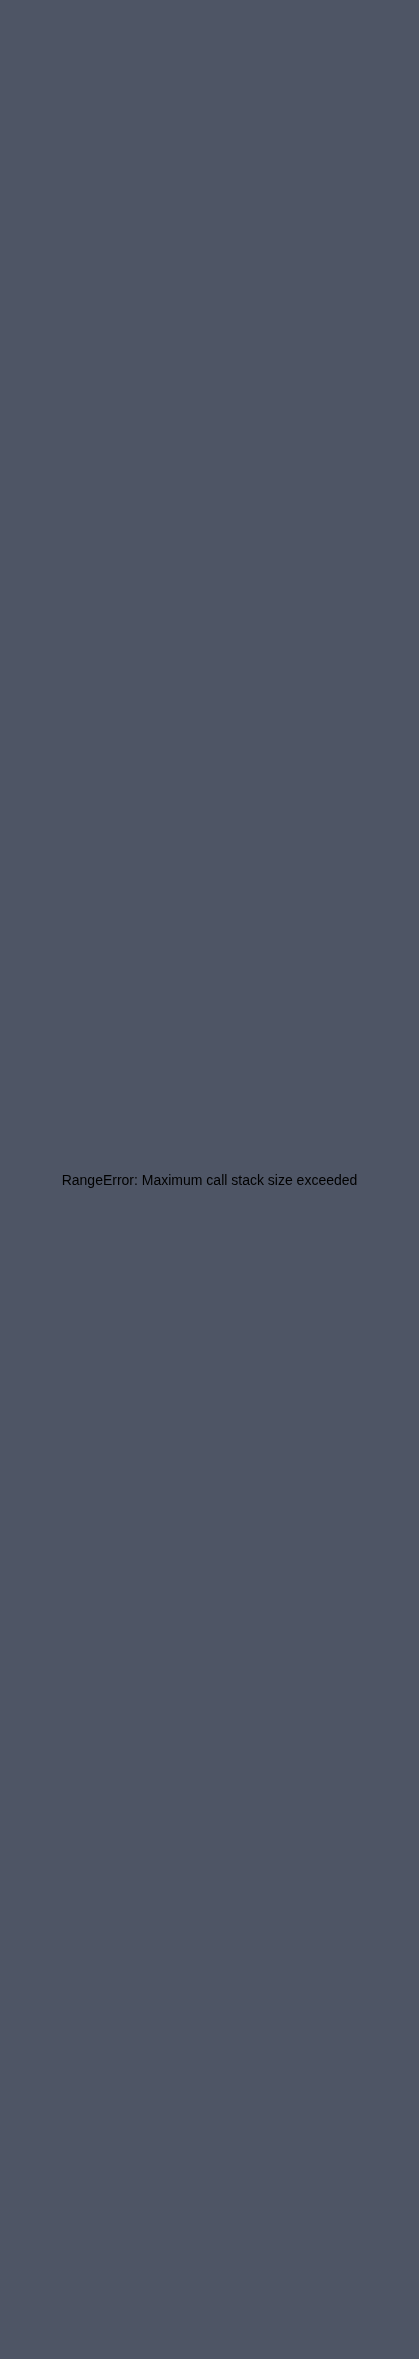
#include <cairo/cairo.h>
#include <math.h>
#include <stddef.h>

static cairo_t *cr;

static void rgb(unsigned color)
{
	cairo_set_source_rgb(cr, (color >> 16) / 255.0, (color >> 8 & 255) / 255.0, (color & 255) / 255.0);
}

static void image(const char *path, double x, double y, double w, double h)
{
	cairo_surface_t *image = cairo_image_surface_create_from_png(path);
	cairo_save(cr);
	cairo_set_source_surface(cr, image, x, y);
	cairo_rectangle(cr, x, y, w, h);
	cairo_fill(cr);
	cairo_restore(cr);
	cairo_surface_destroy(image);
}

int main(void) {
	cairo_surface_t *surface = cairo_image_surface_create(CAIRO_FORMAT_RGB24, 419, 2359);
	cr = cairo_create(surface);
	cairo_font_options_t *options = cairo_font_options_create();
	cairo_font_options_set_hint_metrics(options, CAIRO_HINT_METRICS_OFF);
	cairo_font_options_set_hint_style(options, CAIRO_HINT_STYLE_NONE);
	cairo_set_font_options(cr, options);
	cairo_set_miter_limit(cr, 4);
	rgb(0x4e5565);
	cairo_paint(cr);
	image("img/1.png", 62, 1174, 295, 14);
	cairo_surface_write_to_png(surface, "page.png");
	cairo_font_options_destroy(options);
	cairo_destroy(cr);
	cairo_surface_destroy(surface);
	return 0;
}
